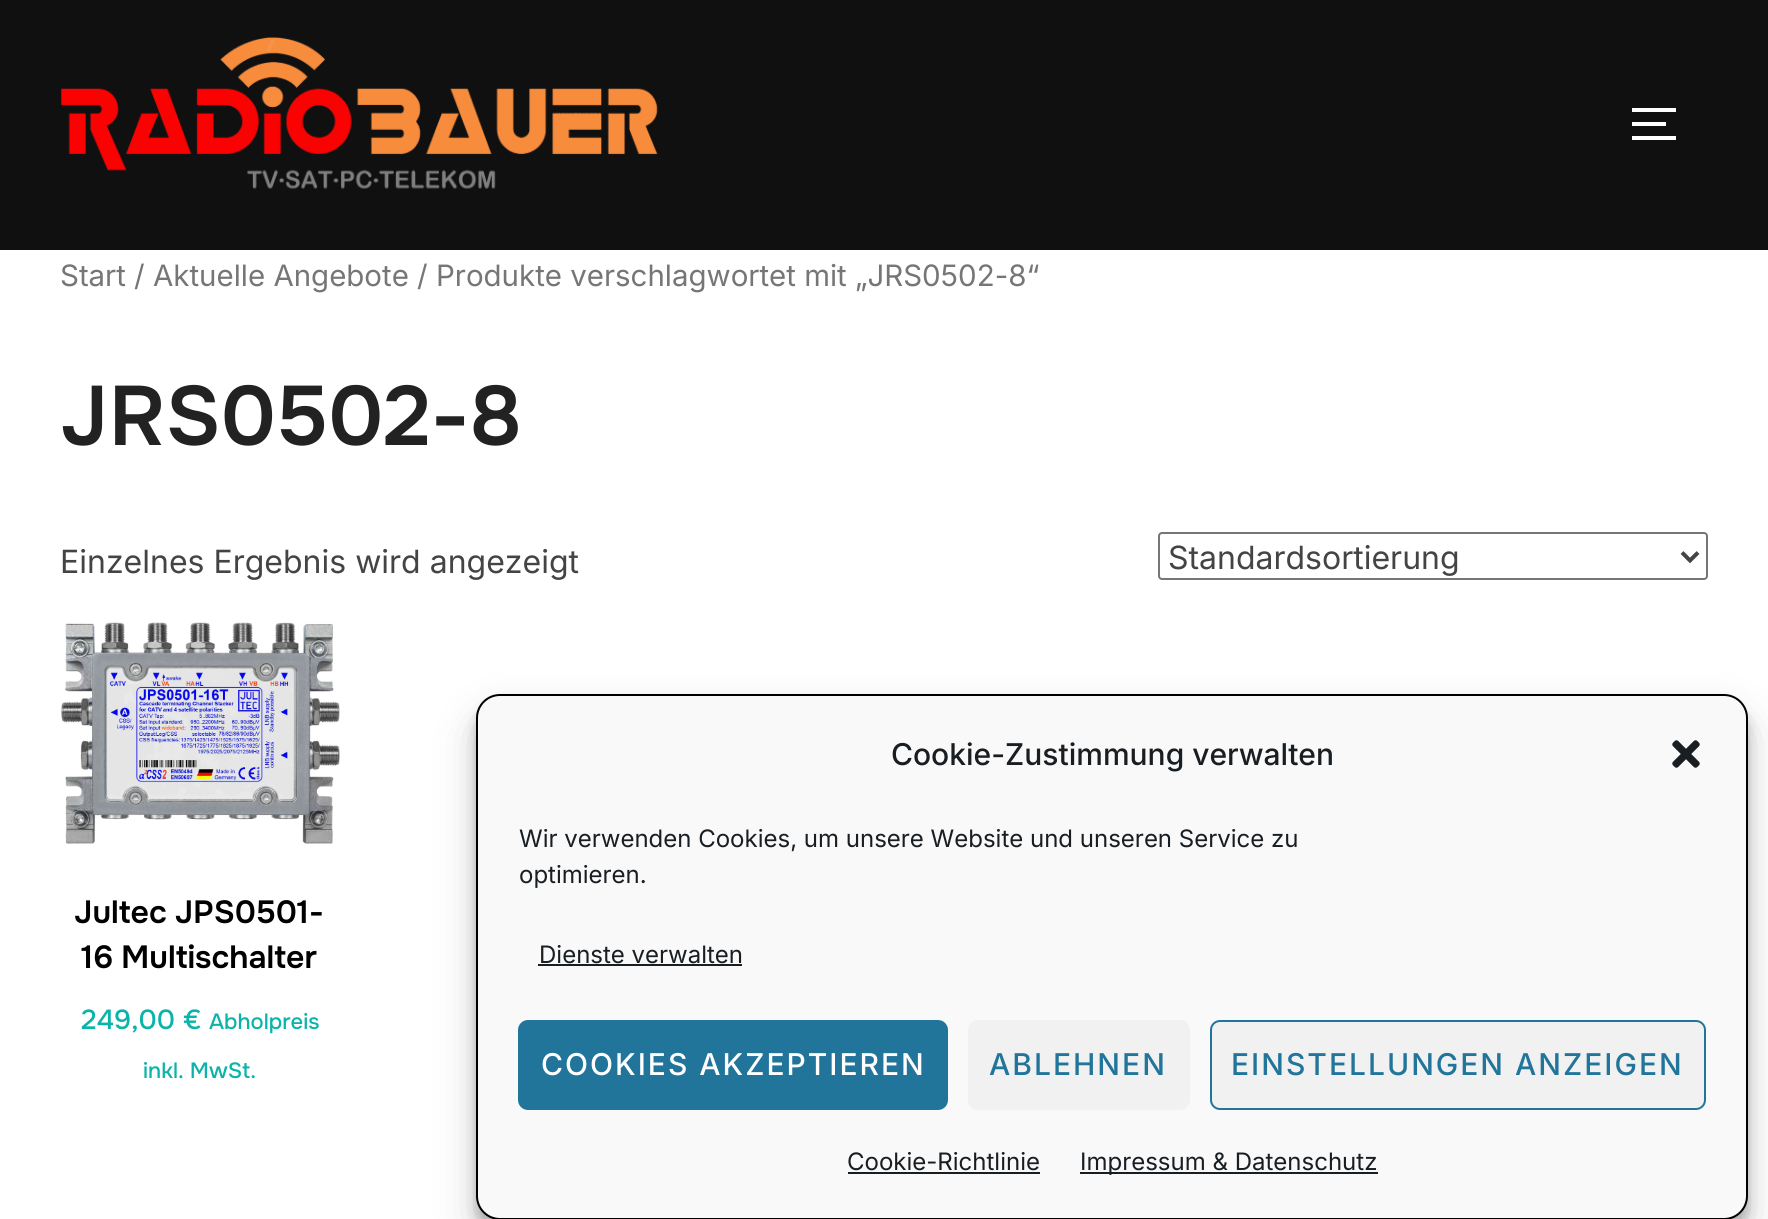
#include <cairo/cairo.h>
#include <math.h>
#include <stddef.h>

typedef struct { double x, y; const char *s; } line_t;
typedef struct { double x, y, w, h; unsigned color; } box_t;
static cairo_t *cr;

static void rgb(unsigned color)
{
	cairo_set_source_rgb(cr, (color >> 16) / 255.0, (color >> 8 & 255) / 255.0, (color & 255) / 255.0);
}

static void tracked(double x, double y, const char *s, double letter, double word)
{
	cairo_move_to(cr, x, y);
	while (*s) {
		char ch[5] = {0};
		int n = 0;
		do ch[n++] = *s++; while ((*s & 0xC0) == 0x80);
		cairo_show_text(cr, ch);
		cairo_rel_move_to(cr, letter + word * (*ch == ' '), 0);
	}
}

static void rrect(double x, double y, double w, double h, double r)
{
	cairo_new_sub_path(cr);
	cairo_arc(cr, x + w - r, y + h - r, r, 0, M_PI / 2);
	cairo_arc(cr, x + r, y + h - r, r, M_PI / 2, M_PI);
	cairo_arc(cr, x + r, y + r, r, M_PI, 1.5 * M_PI);
	cairo_arc(cr, x + w - r, y + r, r, 1.5 * M_PI, 2 * M_PI);
	cairo_close_path(cr);
}

static void soft_shadow(double x, double y, double w, double h, double r, double blur, double alpha)
{
	cairo_push_group_with_content(cr, CAIRO_CONTENT_ALPHA);
	cairo_set_operator(cr, CAIRO_OPERATOR_SOURCE);
	for (int i = 15; i >= -15 && fmin(w, h) + blur * i / 3 > 0; i -= 2) {
		double e = blur * i / 6;
		cairo_set_source_rgba(cr, 0, 0, 0, alpha * erfc((i - 1) / 8.5) / 2);
		rrect(x - e, y - e, w + 2 * e, h + 2 * e, fmax(0, fmin(r + e + blur * .6, fmin(w, h) / 2 + e)));
		cairo_fill(cr);
	}
	cairo_pattern_t *soft = cairo_pop_group(cr);
	cairo_mask(cr, soft);
	cairo_pattern_destroy(soft);
}

static void image(const char *path, double x, double y, double w, double h)
{
	cairo_surface_t *image = cairo_image_surface_create_from_png(path);
	cairo_save(cr);
	cairo_set_source_surface(cr, image, x, y);
	cairo_rectangle(cr, x, y, w, h);
	cairo_fill(cr);
	cairo_restore(cr);
	cairo_surface_destroy(image);
}

int main(void) {
	cairo_surface_t *surface = cairo_image_surface_create(CAIRO_FORMAT_RGB24, 1768, 1219);
	cr = cairo_create(surface);
	cairo_font_options_t *options = cairo_font_options_create();
	cairo_font_options_set_hint_metrics(options, CAIRO_HINT_METRICS_OFF);
	cairo_font_options_set_hint_style(options, CAIRO_HINT_STYLE_NONE);
	cairo_set_font_options(cr, options);
	cairo_set_miter_limit(cr, 4);
	rgb(0xffffff);
	cairo_paint(cr);
	rgb(0x101010);
	cairo_rectangle(cr, 0, 0, 1768, 250);
	cairo_fill(cr);
	image("img/1.png", 61, 37, 597, 152);
	{
		static const box_t items[] = {
			{1632, 108, 44, 4, 0xffffff},
			{1632, 122, 34, 4, 0xffffff},
			{1632, 136, 44, 4, 0xffffff},
		};
		for (size_t i = 0; i < sizeof items / sizeof *items; i++) {
			rgb(items[i].color);
			cairo_rectangle(cr, items[i].x, items[i].y, items[i].w, items[i].h);
			cairo_fill(cr);
		}
	}
	rrect(1159, 533, 548, 46, 3);
	rgb(0x767676);
	cairo_stroke(cr);
	cairo_new_path(cr);
	cairo_move_to(cr, 1682, 552.5);
	cairo_line_to(cr, 1690, 560.5);
	cairo_line_to(cr, 1698, 552.5);
	rgb(0x444444);
	cairo_set_line_width(cr, 4);
	cairo_stroke(cr);
	image("img/2.png", 61, 622, 279, 222);
	rgb(0x000000);
	soft_shadow(476, 706, 1272, 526, 24, 6, 0.23);
	soft_shadow(476, 714, 1272, 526, 24, 20, 0.19);
	rgb(0xf9f9f9);
	rrect(477, 695, 1270, 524, 23);
	cairo_fill_preserve(cr);
	rgb(0x000000);
	cairo_set_line_width(cr, 2);
	cairo_stroke(cr);
	image("img/3.png", 1672, 740, 28, 28);
	rgb(0x191e23);
	cairo_rectangle(cr, 538, 964, 204, 2);
	cairo_fill(cr);
	rgb(0x21759b);
	rrect(519, 1021, 428, 88, 9);
	cairo_fill_preserve(cr);
	cairo_stroke(cr);
	rgb(0xf1f1f1);
	rrect(968, 1020, 222, 90, 10);
	cairo_fill(cr);
	rrect(1211, 1021, 494, 88, 9);
	cairo_fill_preserve(cr);
	rgb(0x21759b);
	cairo_stroke(cr);
	rgb(0x191e23);
	cairo_rectangle(cr, 848, 1172, 192, 2);
	cairo_fill(cr);
	cairo_rectangle(cr, 1080, 1172, 298, 2);
	cairo_fill(cr);
	cairo_select_font_face(cr, "Inter", CAIRO_FONT_SLANT_NORMAL, CAIRO_FONT_WEIGHT_NORMAL);
	cairo_set_font_size(cr, 29.45);
	rgb(0x767676);
	cairo_move_to(cr, 60, 286);
	cairo_show_text(cr, "Start / Aktuelle Angebote / Produkte verschlagwortet mit „JRS0502-8“");
	cairo_select_font_face(cr, "Onest SemiBold", CAIRO_FONT_SLANT_NORMAL, CAIRO_FONT_WEIGHT_NORMAL);
	cairo_set_font_size(cr, 84);
	rgb(0x222222);
	cairo_move_to(cr, 60, 445);
	cairo_show_text(cr, "JRS0502-8");
	cairo_select_font_face(cr, "Inter", CAIRO_FONT_SLANT_NORMAL, CAIRO_FONT_WEIGHT_NORMAL);
	cairo_set_font_size(cr, 32);
	rgb(0x444444);
	cairo_move_to(cr, 60, 573);
	cairo_show_text(cr, "Einzelnes Ergebnis wird angezeigt");
	cairo_move_to(cr, 1168, 569);
	cairo_show_text(cr, "Standardsortierung");
	cairo_select_font_face(cr, "Onest SemiBold", CAIRO_FONT_SLANT_NORMAL, CAIRO_FONT_WEIGHT_NORMAL);
	rgb(0x000000);
	tracked(74, 923, "Jultec JPS0501-", 0, -1);
	tracked(81, 968, "16 Multischalter", 0, -1);
	cairo_select_font_face(cr, "Onest Medium", CAIRO_FONT_SLANT_NORMAL, CAIRO_FONT_WEIGHT_NORMAL);
	cairo_set_font_size(cr, 27.5);
	rgb(0x0bb4aa);
	cairo_move_to(cr, 81, 1029);
	cairo_show_text(cr, "249,00 €");
	cairo_set_font_size(cr, 22);
	cairo_move_to(cr, 209, 1029);
	cairo_show_text(cr, "Abholpreis");
	cairo_move_to(cr, 143, 1078);
	cairo_show_text(cr, "inkl. MwSt.");
	cairo_select_font_face(cr, "Inter Medium", CAIRO_FONT_SLANT_NORMAL, CAIRO_FONT_WEIGHT_NORMAL);
	cairo_set_font_size(cr, 30);
	rgb(0x191e23);
	cairo_move_to(cr, 891, 765);
	cairo_show_text(cr, "Cookie-Zustimmung verwalten");
	cairo_select_font_face(cr, "Inter", CAIRO_FONT_SLANT_NORMAL, CAIRO_FONT_WEIGHT_NORMAL);
	cairo_set_font_size(cr, 24);
	{
		static const line_t items[] = {
			{519, 847, "Wir verwenden Cookies, um unsere Website und unseren Service zu"},
			{519, 883, "optimieren."},
			{539, 963, "Dienste verwalten"},
		};
		for (size_t i = 0; i < sizeof items / sizeof *items; i++) {
			cairo_move_to(cr, items[i].x, items[i].y);
			cairo_show_text(cr, items[i].s);
		}
	}
	cairo_select_font_face(cr, "Inter Medium", CAIRO_FONT_SLANT_NORMAL, CAIRO_FONT_WEIGHT_NORMAL);
	cairo_set_font_size(cr, 30);
	rgb(0xffffff);
	tracked(541, 1075, "COOKIES AKZEPTIEREN", 2, 0);
	rgb(0x21759b);
	tracked(989, 1075, "ABLEHNEN", 2, 0);
	tracked(1231, 1075, "EINSTELLUNGEN ANZEIGEN", 2, 0);
	cairo_select_font_face(cr, "Inter", CAIRO_FONT_SLANT_NORMAL, CAIRO_FONT_WEIGHT_NORMAL);
	cairo_set_font_size(cr, 24);
	rgb(0x191e23);
	cairo_move_to(cr, 847, 1170);
	cairo_show_text(cr, "Cookie-Richtlinie");
	cairo_move_to(cr, 1080, 1170);
	cairo_show_text(cr, "Impressum & Datenschutz");
	cairo_surface_write_to_png(surface, "page.png");
	cairo_font_options_destroy(options);
	cairo_destroy(cr);
	cairo_surface_destroy(surface);
	return 0;
}
